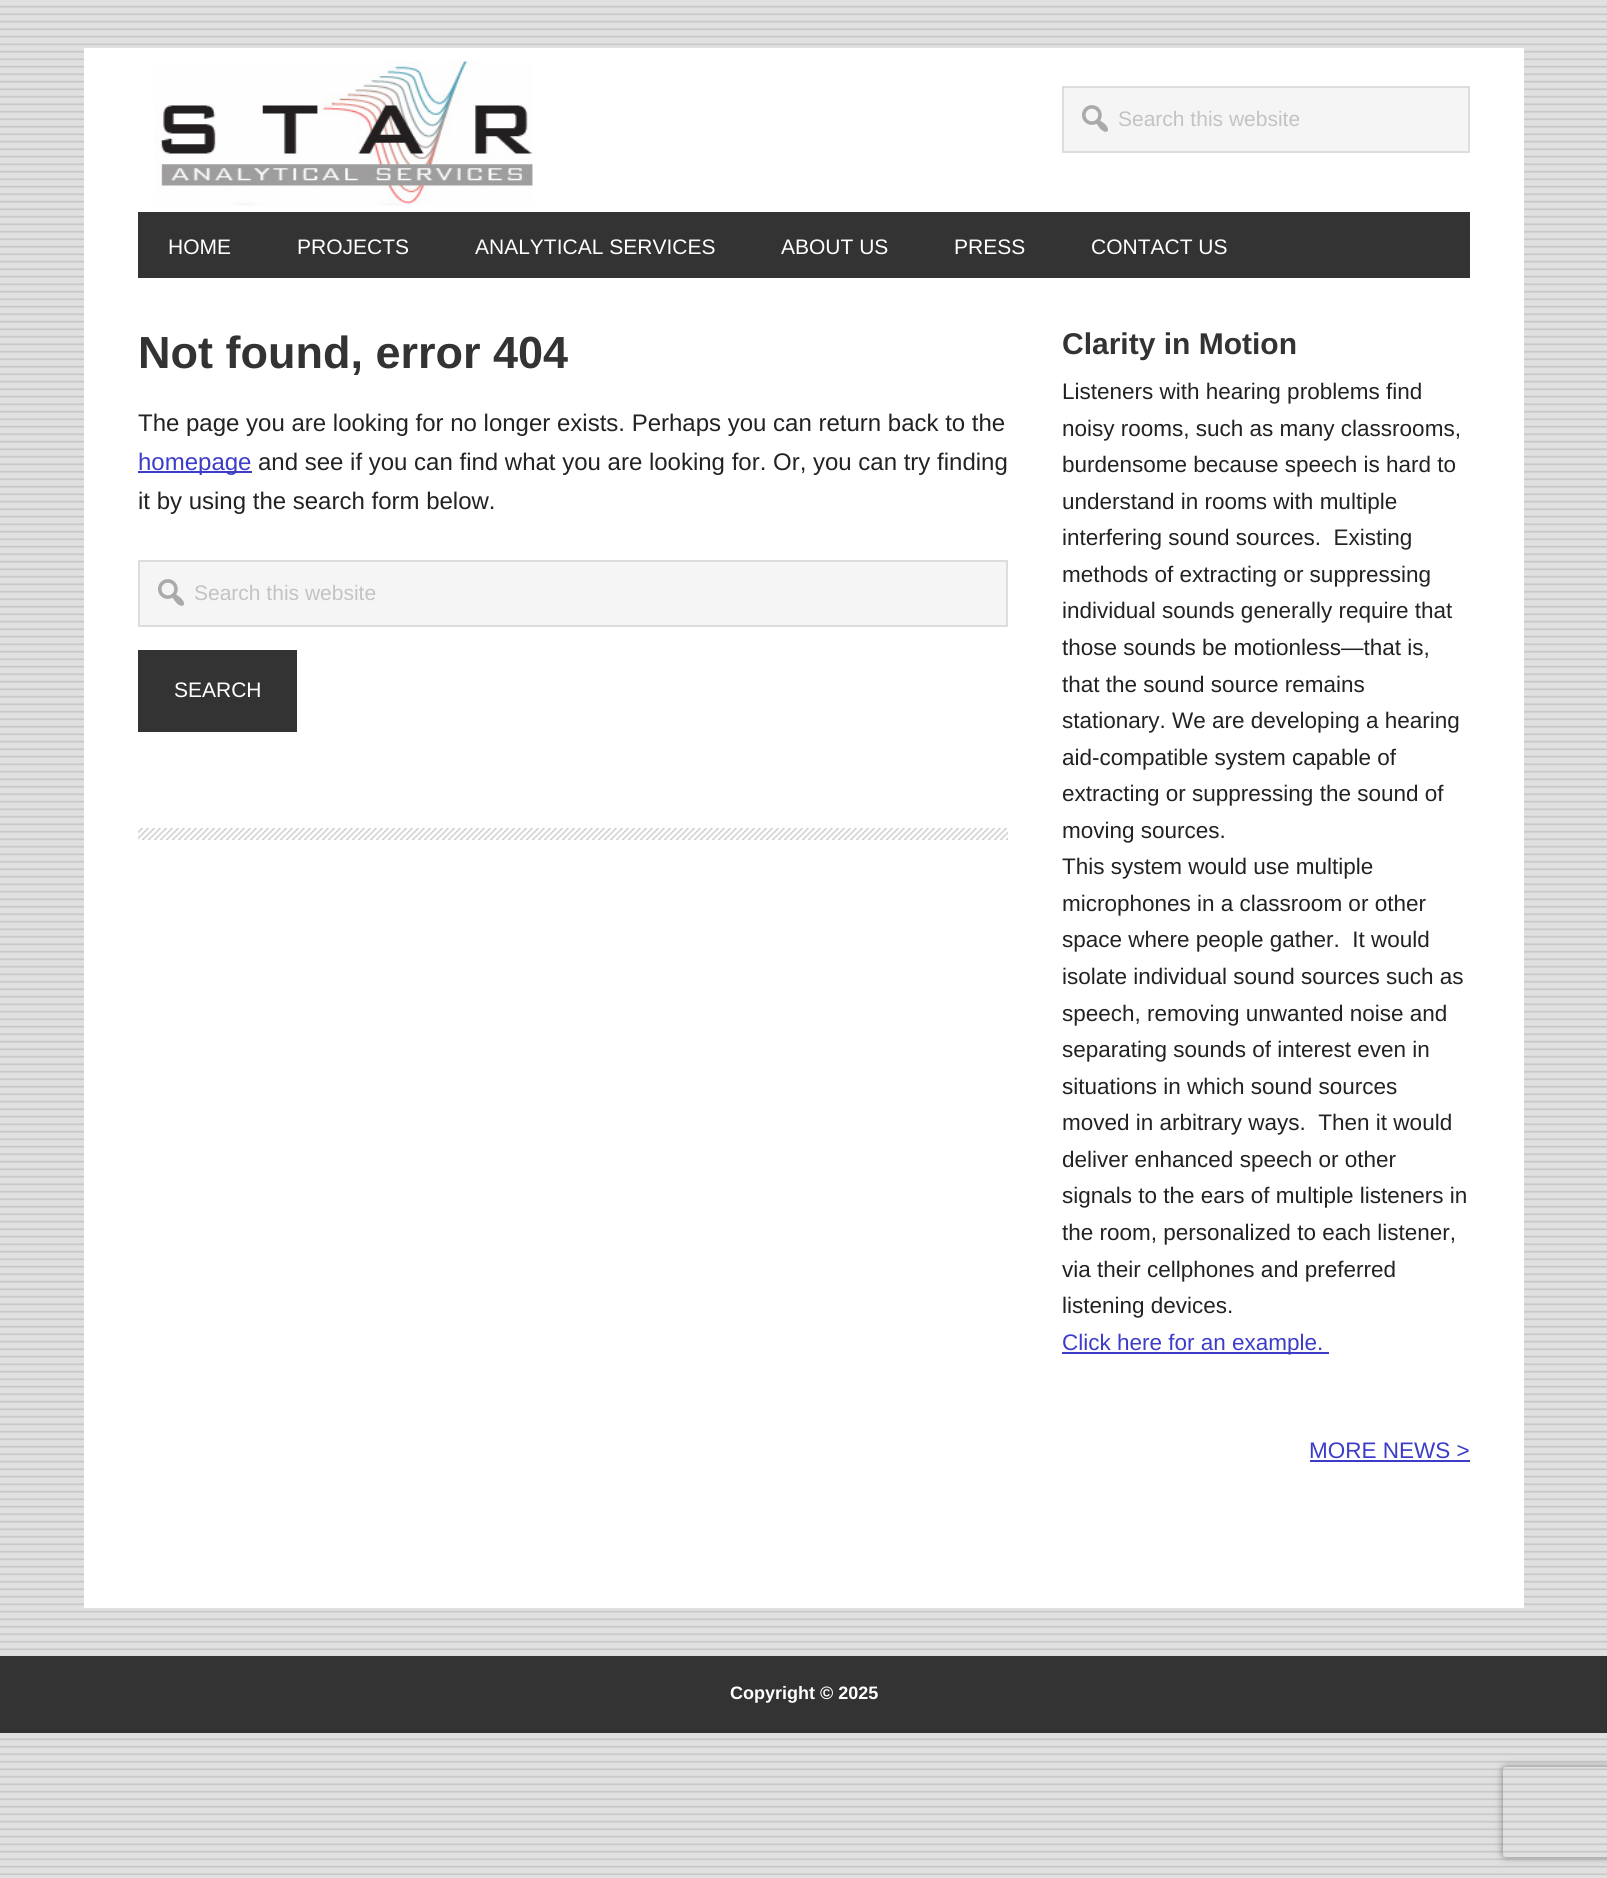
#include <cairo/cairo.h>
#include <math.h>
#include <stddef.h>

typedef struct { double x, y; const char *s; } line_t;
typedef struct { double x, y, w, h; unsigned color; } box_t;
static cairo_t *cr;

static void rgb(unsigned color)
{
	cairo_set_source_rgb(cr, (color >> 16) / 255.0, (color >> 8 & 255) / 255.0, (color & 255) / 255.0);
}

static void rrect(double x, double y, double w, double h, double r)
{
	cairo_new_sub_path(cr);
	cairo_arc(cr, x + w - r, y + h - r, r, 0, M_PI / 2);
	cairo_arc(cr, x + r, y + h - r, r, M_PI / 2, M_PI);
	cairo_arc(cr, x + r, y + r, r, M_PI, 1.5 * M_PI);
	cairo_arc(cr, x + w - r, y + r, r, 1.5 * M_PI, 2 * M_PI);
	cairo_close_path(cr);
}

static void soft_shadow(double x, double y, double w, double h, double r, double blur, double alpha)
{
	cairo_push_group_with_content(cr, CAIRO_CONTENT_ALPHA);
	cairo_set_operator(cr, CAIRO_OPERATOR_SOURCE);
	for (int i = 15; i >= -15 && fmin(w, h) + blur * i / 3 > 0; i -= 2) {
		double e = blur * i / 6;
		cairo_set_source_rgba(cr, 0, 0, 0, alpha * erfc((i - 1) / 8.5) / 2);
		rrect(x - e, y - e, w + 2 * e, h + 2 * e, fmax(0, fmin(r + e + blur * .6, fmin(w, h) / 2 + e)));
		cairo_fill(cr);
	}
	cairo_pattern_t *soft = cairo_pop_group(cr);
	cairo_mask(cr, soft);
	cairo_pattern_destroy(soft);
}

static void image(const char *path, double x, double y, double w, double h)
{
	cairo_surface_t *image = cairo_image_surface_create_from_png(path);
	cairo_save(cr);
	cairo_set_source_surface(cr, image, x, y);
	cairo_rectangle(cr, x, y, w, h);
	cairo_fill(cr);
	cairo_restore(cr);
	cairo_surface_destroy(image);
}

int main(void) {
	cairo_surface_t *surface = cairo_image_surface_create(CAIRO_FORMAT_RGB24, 1607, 1878);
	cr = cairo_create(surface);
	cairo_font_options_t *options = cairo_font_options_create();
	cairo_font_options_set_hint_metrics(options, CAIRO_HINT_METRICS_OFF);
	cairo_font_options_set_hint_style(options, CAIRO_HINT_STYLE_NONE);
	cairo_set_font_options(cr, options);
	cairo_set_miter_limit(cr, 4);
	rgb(0xe0e0e0);
	cairo_paint(cr);
	image("img/1.png", 0, 5, 1607, 1870);
	rgb(0xffffff);
	cairo_rectangle(cr, 84, 48, 1440, 1560);
	cairo_fill(cr);
	image("img/2.png", 154, 61, 379, 145);
	rgb(0xf5f5f5);
	cairo_rectangle(cr, 1063, 87, 406, 65);
	cairo_fill_preserve(cr);
	rgb(0xdddddd);
	cairo_stroke(cr);
	image("img/3.png", 1082, 105, 26, 27);
	rgb(0x333333);
	cairo_rectangle(cr, 138, 212, 1332, 66);
	cairo_fill(cr);
	image("img/4.png", 138, 828, 870, 12);
	rgb(0x3c3cc9);
	cairo_rectangle(cr, 138, 471, 114, 2);
	cairo_fill(cr);
	rgb(0xf5f5f5);
	cairo_rectangle(cr, 139, 561, 868, 65);
	cairo_fill_preserve(cr);
	rgb(0xdddddd);
	cairo_stroke(cr);
	image("img/3.png", 158, 579, 26, 27);
	{
		static const box_t items[] = {
			{138, 650, 159, 82, 0x333333},
			{1062, 1352, 267, 2, 0x3c3cc9},
			{1310, 1460, 160, 2, 0x3c3cc9},
			{0, 1656, 1607, 77, 0x333333},
		};
		for (size_t i = 0; i < sizeof items / sizeof *items; i++) {
			rgb(items[i].color);
			cairo_rectangle(cr, items[i].x, items[i].y, items[i].w, items[i].h);
			cairo_fill(cr);
		}
	}
	cairo_save(cr);
	cairo_set_fill_rule(cr, CAIRO_FILL_RULE_EVEN_ODD);
	cairo_new_path(cr);
	cairo_move_to(cr, 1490, 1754);
	cairo_line_to(cr, 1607, 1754);
	cairo_line_to(cr, 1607, 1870);
	cairo_line_to(cr, 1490, 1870);
	cairo_close_path(cr);
	cairo_move_to(cr, 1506, 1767);
	cairo_line_to(cr, 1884, 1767);
	cairo_curve_to(cr, 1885.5, 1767, 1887, 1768.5, 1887, 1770);
	cairo_line_to(cr, 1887, 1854);
	cairo_curve_to(cr, 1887, 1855.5, 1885.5, 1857, 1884, 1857);
	cairo_line_to(cr, 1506, 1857);
	cairo_curve_to(cr, 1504.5, 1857, 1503, 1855.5, 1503, 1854);
	cairo_line_to(cr, 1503, 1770);
	cairo_curve_to(cr, 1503, 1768.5, 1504.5, 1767, 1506, 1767);
	cairo_close_path(cr);
	cairo_clip(cr);
	rgb(0x808080);
	soft_shadow(1503, 1767, 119, 90, 3, 4, 1);
	cairo_restore(cr);
	cairo_select_font_face(cr, "Liberation Sans", CAIRO_FONT_SLANT_NORMAL, CAIRO_FONT_WEIGHT_NORMAL);
	cairo_set_font_size(cr, 21);
	rgb(0xc3c3c3);
	cairo_move_to(cr, 1118, 126);
	cairo_show_text(cr, "Search this website");
	rgb(0xffffff);
	{
		static const line_t items[] = {
			{168, 254, "HOME"},
			{297, 254, "PROJECTS"},
			{475, 254, "ANALYTICAL SERVICES"},
			{781, 254, "ABOUT US"},
			{954, 254, "PRESS"},
			{1091, 254, "CONTACT US"},
		};
		for (size_t i = 0; i < sizeof items / sizeof *items; i++) {
			cairo_move_to(cr, items[i].x, items[i].y);
			cairo_show_text(cr, items[i].s);
		}
	}
	cairo_select_font_face(cr, "Liberation Sans", CAIRO_FONT_SLANT_NORMAL, CAIRO_FONT_WEIGHT_BOLD);
	cairo_set_font_size(cr, 45);
	rgb(0x333333);
	cairo_move_to(cr, 138, 368);
	cairo_show_text(cr, "Not found, error 404");
	cairo_select_font_face(cr, "Liberation Sans", CAIRO_FONT_SLANT_NORMAL, CAIRO_FONT_WEIGHT_NORMAL);
	cairo_set_font_size(cr, 24);
	rgb(0x222222);
	cairo_move_to(cr, 138, 431);
	cairo_show_text(cr, "The page you are looking for no longer exists. Perhaps you can return back to the");
	rgb(0x3c3cc9);
	cairo_move_to(cr, 138, 470);
	cairo_show_text(cr, "homepage");
	rgb(0x222222);
	cairo_move_to(cr, 258, 470);
	cairo_show_text(cr, "and see if you can find what you are looking for. Or, you can try finding");
	cairo_move_to(cr, 138, 509);
	cairo_show_text(cr, "it by using the search form below.");
	cairo_set_font_size(cr, 21);
	rgb(0xc3c3c3);
	cairo_move_to(cr, 194, 600);
	cairo_show_text(cr, "Search this website");
	rgb(0xffffff);
	cairo_move_to(cr, 174, 697);
	cairo_show_text(cr, "SEARCH");
	cairo_select_font_face(cr, "Liberation Sans", CAIRO_FONT_SLANT_NORMAL, CAIRO_FONT_WEIGHT_BOLD);
	cairo_set_font_size(cr, 30);
	rgb(0x333333);
	cairo_move_to(cr, 1062, 354);
	cairo_show_text(cr, "Clarity in Motion");
	cairo_select_font_face(cr, "Liberation Sans", CAIRO_FONT_SLANT_NORMAL, CAIRO_FONT_WEIGHT_NORMAL);
	cairo_set_font_size(cr, 22.5);
	rgb(0x222222);
	{
		static const line_t items[] = {
			{1062, 399, "Listeners with hearing problems find"},
			{1062, 436, "noisy rooms, such as many classrooms,"},
			{1062, 472, "burdensome because speech is hard to"},
			{1062, 509, "understand in rooms with multiple"},
			{1062, 545, "interfering sound sources.  Existing"},
			{1062, 582, "methods of extracting or suppressing"},
			{1062, 618, "individual sounds generally require that"},
			{1062, 655, "those sounds be motionless—that is,"},
			{1062, 692, "that the sound source remains"},
			{1062, 728, "stationary. We are developing a hearing"},
			{1062, 765, "aid-compatible system capable of"},
			{1062, 801, "extracting or suppressing the sound of"},
			{1062, 838, "moving sources."},
			{1062, 874, "This system would use multiple"},
			{1062, 911, "microphones in a classroom or other"},
			{1062, 947, "space where people gather.  It would"},
			{1062, 984, "isolate individual sound sources such as"},
			{1062, 1021, "speech, removing unwanted noise and"},
			{1062, 1057, "separating sounds of interest even in"},
			{1062, 1094, "situations in which sound sources"},
			{1062, 1130, "moved in arbitrary ways.  Then it would"},
			{1062, 1167, "deliver enhanced speech or other"},
			{1062, 1203, "signals to the ears of multiple listeners in"},
			{1062, 1240, "the room, personalized to each listener,"},
			{1062, 1277, "via their cellphones and preferred"},
			{1062, 1313, "listening devices."},
		};
		for (size_t i = 0; i < sizeof items / sizeof *items; i++) {
			cairo_move_to(cr, items[i].x, items[i].y);
			cairo_show_text(cr, items[i].s);
		}
	}
	rgb(0x3c3cc9);
	cairo_move_to(cr, 1062, 1350);
	cairo_show_text(cr, "Click here for an example.");
	cairo_move_to(cr, 1309, 1458);
	cairo_show_text(cr, "MORE NEWS >");
	cairo_select_font_face(cr, "Liberation Sans", CAIRO_FONT_SLANT_NORMAL, CAIRO_FONT_WEIGHT_BOLD);
	cairo_set_font_size(cr, 18);
	rgb(0xffffff);
	cairo_move_to(cr, 730, 1699);
	cairo_show_text(cr, "Copyright © 2025");
	cairo_surface_write_to_png(surface, "page.png");
	cairo_font_options_destroy(options);
	cairo_destroy(cr);
	cairo_surface_destroy(surface);
	return 0;
}
